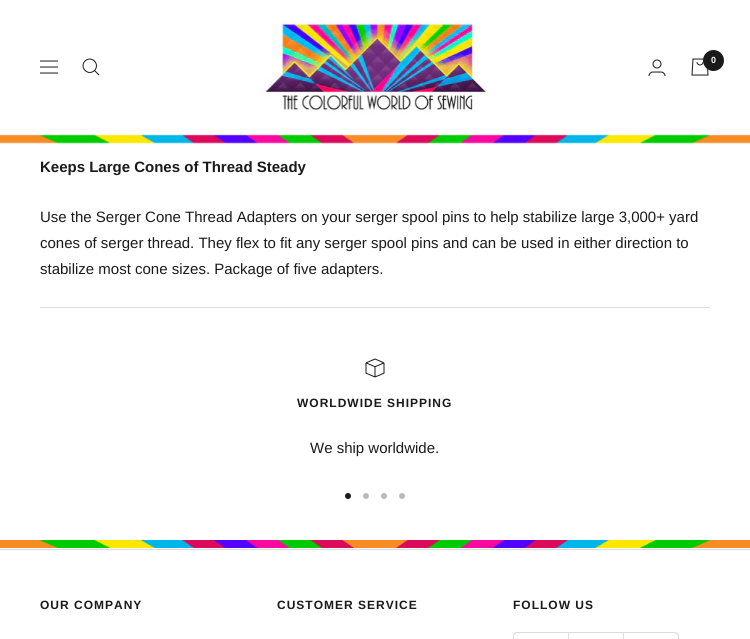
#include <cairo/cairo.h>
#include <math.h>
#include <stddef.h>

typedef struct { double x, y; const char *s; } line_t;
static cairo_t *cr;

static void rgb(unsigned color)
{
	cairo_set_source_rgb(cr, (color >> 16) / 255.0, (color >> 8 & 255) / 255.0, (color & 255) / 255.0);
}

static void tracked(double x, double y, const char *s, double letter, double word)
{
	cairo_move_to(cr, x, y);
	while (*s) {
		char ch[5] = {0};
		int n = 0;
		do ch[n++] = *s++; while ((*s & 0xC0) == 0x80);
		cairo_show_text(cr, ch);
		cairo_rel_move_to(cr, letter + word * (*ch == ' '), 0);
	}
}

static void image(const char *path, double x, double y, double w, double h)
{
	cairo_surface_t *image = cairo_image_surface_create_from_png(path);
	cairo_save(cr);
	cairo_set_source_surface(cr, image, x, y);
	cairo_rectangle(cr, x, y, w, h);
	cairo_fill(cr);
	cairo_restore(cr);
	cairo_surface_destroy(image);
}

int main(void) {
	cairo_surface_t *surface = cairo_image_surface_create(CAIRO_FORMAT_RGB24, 750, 639);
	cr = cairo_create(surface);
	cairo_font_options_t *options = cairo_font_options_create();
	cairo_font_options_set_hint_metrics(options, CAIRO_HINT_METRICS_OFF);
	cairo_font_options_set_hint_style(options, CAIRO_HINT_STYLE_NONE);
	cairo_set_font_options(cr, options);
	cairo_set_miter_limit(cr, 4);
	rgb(0xffffff);
	cairo_paint(cr);
	cairo_new_path(cr);
	cairo_move_to(cr, 40, 61);
	cairo_line_to(cr, 58, 61);
	cairo_move_to(cr, 40, 73);
	cairo_line_to(cr, 58, 73);
	cairo_close_path(cr);
	cairo_move_to(cr, 40, 67);
	cairo_line_to(cr, 58, 67);
	cairo_close_path(cr);
	cairo_move_to(cr, 94.5, 70.5);
	cairo_curve_to(cr, 100.5, 64, 91.5, 55, 85, 61);
	cairo_curve_to(cr, 79, 67.5, 88, 76.5, 94.5, 70.5);
	cairo_close_path(cr);
	cairo_move_to(cr, 94.5, 70.5);
	cairo_line_to(cr, 99, 75);
	rgb(0x1a1a1a);
	cairo_set_line_width(cr, 1);
	cairo_stroke(cr);
	image("img/1.png", 263, 21, 225, 92);
	image("img/2.png", 648, 59, 18, 17);
	image("img/3.png", 691, 58, 18, 18);
	cairo_arc(cr, 713.5, 60.5, 10.5, 0, 2 * M_PI);
	cairo_fill(cr);
	image("img/4.png", 0, 134, 750, 10);
	rgb(0xdddddd);
	cairo_rectangle(cr, 40, 307, 670, 1);
	cairo_fill(cr);
	image("img/5.png", 365, 358, 20, 20);
	rgb(0x1a1a1a);
	cairo_arc(cr, 348, 496, 3, 0, 2 * M_PI);
	cairo_fill(cr);
	rgb(0xbababa);
	cairo_arc(cr, 366, 496, 3, 0, 2 * M_PI);
	cairo_fill(cr);
	cairo_arc(cr, 384, 496, 3, 0, 2 * M_PI);
	cairo_fill(cr);
	cairo_arc(cr, 402, 496, 3, 0, 2 * M_PI);
	cairo_fill(cr);
	image("img/6.png", 0, 540, 750, 8);
	rgb(0xdddddd);
	cairo_rectangle(cr, 0, 549, 750, 1);
	cairo_fill(cr);
	cairo_rectangle(cr, 568, 632, 1, 7);
	cairo_fill(cr);
	cairo_new_path(cr);
	cairo_move_to(cr, 517, 633);
	cairo_line_to(cr, 568, 633);
	cairo_line_to(cr, 568, 632);
	cairo_line_to(cr, 517, 632);
	cairo_curve_to(cr, 515, 632, 513, 634, 513, 636);
	cairo_line_to(cr, 513, 637);
	cairo_curve_to(cr, 513, 635, 515, 633, 517, 633);
	cairo_close_path(cr);
	cairo_fill(cr);
	cairo_new_path(cr);
	cairo_move_to(cr, 517, 632);
	cairo_curve_to(cr, 515, 632, 513, 634, 513, 636);
	cairo_line_to(cr, 513, 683);
	cairo_curve_to(cr, 513, 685, 515, 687, 517, 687);
	cairo_line_to(cr, 518, 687);
	cairo_curve_to(cr, 516, 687, 514, 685, 514, 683);
	cairo_line_to(cr, 514, 636);
	cairo_curve_to(cr, 514, 634, 516, 632, 518, 632);
	cairo_close_path(cr);
	cairo_fill(cr);
	cairo_rectangle(cr, 623, 632, 1, 7);
	cairo_fill(cr);
	cairo_rectangle(cr, 568, 632, 55, 1);
	cairo_fill(cr);
	cairo_new_path(cr);
	cairo_move_to(cr, 674, 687);
	cairo_curve_to(cr, 681, 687, 679, 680, 679, 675);
	cairo_line_to(cr, 679, 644);
	cairo_curve_to(cr, 679, 639, 681, 632, 674, 632);
	cairo_curve_to(cr, 676, 632, 678, 634, 678, 636);
	cairo_line_to(cr, 678, 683);
	cairo_curve_to(cr, 678, 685, 676, 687, 674, 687);
	cairo_close_path(cr);
	cairo_fill(cr);
	cairo_new_path(cr);
	cairo_move_to(cr, 623, 633);
	cairo_line_to(cr, 674, 633);
	cairo_curve_to(cr, 676, 633, 678, 635, 678, 637);
	cairo_line_to(cr, 678, 636);
	cairo_curve_to(cr, 678, 634, 676, 632, 674, 632);
	cairo_line_to(cr, 623, 632);
	cairo_close_path(cr);
	cairo_fill(cr);
	cairo_select_font_face(cr, "Liberation Sans", CAIRO_FONT_SLANT_NORMAL, CAIRO_FONT_WEIGHT_BOLD);
	cairo_set_font_size(cr, 9);
	rgb(0xffffff);
	cairo_move_to(cr, 711, 63);
	cairo_show_text(cr, "0");
	cairo_set_font_size(cr, 15);
	rgb(0x1a1a1a);
	cairo_move_to(cr, 40, 172);
	cairo_show_text(cr, "Keeps Large Cones of Thread Steady");
	cairo_select_font_face(cr, "Liberation Sans", CAIRO_FONT_SLANT_NORMAL, CAIRO_FONT_WEIGHT_NORMAL);
	{
		static const line_t items[] = {
			{40, 222, "Use the Serger Cone Thread Adapters on your serger spool pins to help stabilize large 3,000+ yard"},
			{40, 248, "cones of serger thread. They flex to fit any serger spool pins and can be used in either direction to"},
			{40, 274, "stabilize most cone sizes. Package of five adapters."},
		};
		for (size_t i = 0; i < sizeof items / sizeof *items; i++) {
			cairo_move_to(cr, items[i].x, items[i].y);
			cairo_show_text(cr, items[i].s);
		}
	}
	cairo_select_font_face(cr, "Liberation Sans", CAIRO_FONT_SLANT_NORMAL, CAIRO_FONT_WEIGHT_BOLD);
	cairo_set_font_size(cr, 12);
	tracked(297, 407, "WORLDWIDE SHIPPING", 1, 0);
	cairo_select_font_face(cr, "Liberation Sans", CAIRO_FONT_SLANT_NORMAL, CAIRO_FONT_WEIGHT_NORMAL);
	cairo_set_font_size(cr, 15);
	cairo_move_to(cr, 310, 453);
	cairo_show_text(cr, "We ship worldwide.");
	cairo_select_font_face(cr, "Liberation Sans", CAIRO_FONT_SLANT_NORMAL, CAIRO_FONT_WEIGHT_BOLD);
	cairo_set_font_size(cr, 12);
	{
		static const line_t items[] = {
			{40, 609, "OUR COMPANY"},
			{277, 609, "CUSTOMER SERVICE"},
			{513, 609, "FOLLOW US"},
		};
		for (size_t i = 0; i < sizeof items / sizeof *items; i++) {
			tracked(items[i].x, items[i].y, items[i].s, 1, 0);
		}
	}
	cairo_surface_write_to_png(surface, "page.png");
	cairo_font_options_destroy(options);
	cairo_destroy(cr);
	cairo_surface_destroy(surface);
	return 0;
}
